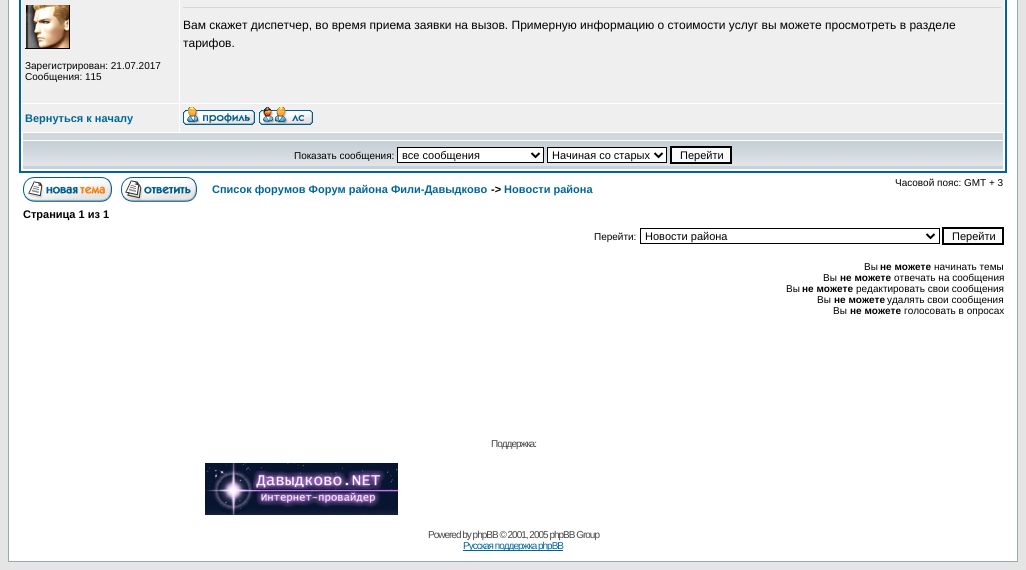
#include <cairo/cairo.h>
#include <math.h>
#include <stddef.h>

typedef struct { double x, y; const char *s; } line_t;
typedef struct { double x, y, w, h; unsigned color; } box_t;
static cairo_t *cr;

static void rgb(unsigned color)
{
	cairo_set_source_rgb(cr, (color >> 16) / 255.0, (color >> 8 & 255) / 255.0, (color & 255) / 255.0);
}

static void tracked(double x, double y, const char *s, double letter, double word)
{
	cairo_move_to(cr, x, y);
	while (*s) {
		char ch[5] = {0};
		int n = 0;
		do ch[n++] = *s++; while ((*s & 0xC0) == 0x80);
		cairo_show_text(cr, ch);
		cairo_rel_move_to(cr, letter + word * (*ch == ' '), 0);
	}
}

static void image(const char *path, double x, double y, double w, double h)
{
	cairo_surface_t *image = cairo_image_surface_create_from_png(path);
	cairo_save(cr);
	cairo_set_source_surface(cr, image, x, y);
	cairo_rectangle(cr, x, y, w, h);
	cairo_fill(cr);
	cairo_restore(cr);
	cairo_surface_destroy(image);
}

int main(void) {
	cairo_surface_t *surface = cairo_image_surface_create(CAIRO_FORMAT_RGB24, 1026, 570);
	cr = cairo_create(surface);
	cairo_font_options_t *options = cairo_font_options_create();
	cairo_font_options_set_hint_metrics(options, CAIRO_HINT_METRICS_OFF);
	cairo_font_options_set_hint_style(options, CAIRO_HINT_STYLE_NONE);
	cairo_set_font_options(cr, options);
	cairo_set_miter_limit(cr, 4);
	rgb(0xe5e5e5);
	cairo_paint(cr);
	rgb(0xffffff);
	cairo_rectangle(cr, 8.5, -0.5, 1009, 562);
	cairo_fill_preserve(cr);
	rgb(0x98aab1);
	cairo_set_line_width(cr, 1);
	cairo_stroke(cr);
	cairo_rectangle(cr, 20, -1, 986, 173);
	rgb(0x006699);
	cairo_set_line_width(cr, 2);
	cairo_stroke(cr);
	{
		static const box_t items[] = {
			{180, 0, 824, 103, 0xefefef},
			{183, 7, 818, 1, 0xd1d7dc},
			{22, 0, 157, 103, 0xefefef},
		};
		for (size_t i = 0; i < sizeof items / sizeof *items; i++) {
			rgb(items[i].color);
			cairo_rectangle(cr, items[i].x, items[i].y, items[i].w, items[i].h);
			cairo_fill(cr);
		}
	}
	image("img/1.png", 25, 5, 45, 44);
	cairo_rectangle(cr, 22, 104, 157, 28);
	cairo_fill(cr);
	cairo_rectangle(cr, 180, 104, 824, 28);
	cairo_fill(cr);
	image("img/2.png", 183, 107, 72, 18);
	image("img/3.png", 259, 107, 54, 18);
	rgb(0xd1d7dc);
	cairo_rectangle(cr, 23, 133, 980, 7);
	cairo_fill(cr);
	image("img/4.png", 23, 141, 980, 28);
	rgb(0xffffff);
	cairo_rectangle(cr, 397.5, 147.5, 146, 15);
	cairo_fill_preserve(cr);
	rgb(0x000000);
	cairo_set_line_width(cr, 1);
	cairo_stroke(cr);
	cairo_new_path(cr);
	cairo_move_to(cr, 531.5, 153);
	cairo_line_to(cr, 535.5, 157);
	cairo_line_to(cr, 539.5, 153);
	cairo_set_line_width(cr, 2);
	cairo_stroke(cr);
	rgb(0xffffff);
	cairo_rectangle(cr, 547.5, 147.5, 119, 15);
	cairo_fill_preserve(cr);
	rgb(0x000000);
	cairo_set_line_width(cr, 1);
	cairo_stroke(cr);
	cairo_new_path(cr);
	cairo_move_to(cr, 654.5, 153);
	cairo_line_to(cr, 658.5, 157);
	cairo_line_to(cr, 662.5, 153);
	cairo_set_line_width(cr, 2);
	cairo_stroke(cr);
	rgb(0xfafafa);
	cairo_rectangle(cr, 671, 147, 60, 16);
	cairo_fill_preserve(cr);
	rgb(0x000000);
	cairo_stroke(cr);
	image("img/5.png", 23, 177, 89, 25);
	image("img/6.png", 121, 177, 76, 25);
	cairo_rectangle(cr, 640.5, 228.5, 299, 15);
	cairo_set_line_width(cr, 1);
	cairo_stroke(cr);
	cairo_new_path(cr);
	cairo_move_to(cr, 926.5, 234);
	cairo_line_to(cr, 930.5, 238);
	cairo_line_to(cr, 934.5, 234);
	cairo_set_line_width(cr, 2);
	cairo_stroke(cr);
	rgb(0xfafafa);
	cairo_rectangle(cr, 943, 228, 60, 16);
	cairo_fill_preserve(cr);
	rgb(0x000000);
	cairo_stroke(cr);
	image("img/7.png", 205, 463, 193, 52);
	rgb(0x006699);
	cairo_rectangle(cr, 463, 550, 100, 1);
	cairo_fill(cr);
	cairo_select_font_face(cr, "Liberation Sans", CAIRO_FONT_SLANT_NORMAL, CAIRO_FONT_WEIGHT_NORMAL);
	cairo_set_font_size(cr, 12);
	rgb(0x000000);
	cairo_move_to(cr, 183, 29);
	cairo_show_text(cr, "Вам скажет диспетчер, во время приема заявки на вызов. Примерную информацию о стоимости услуг вы можете просмотреть в разделе");
	cairo_move_to(cr, 183, 47);
	cairo_show_text(cr, "тарифов.");
	cairo_set_font_size(cr, 10);
	cairo_move_to(cr, 25, 69);
	cairo_show_text(cr, "Зарегистрирован: 21.07.2017");
	cairo_move_to(cr, 25, 80);
	cairo_show_text(cr, "Сообщения: 115");
	cairo_select_font_face(cr, "Liberation Sans", CAIRO_FONT_SLANT_NORMAL, CAIRO_FONT_WEIGHT_BOLD);
	cairo_set_font_size(cr, 11);
	rgb(0x006699);
	cairo_move_to(cr, 25, 122);
	cairo_show_text(cr, "Вернуться к началу");
	cairo_select_font_face(cr, "Liberation Sans", CAIRO_FONT_SLANT_NORMAL, CAIRO_FONT_WEIGHT_NORMAL);
	cairo_set_font_size(cr, 10);
	rgb(0x000000);
	cairo_move_to(cr, 294, 159);
	cairo_show_text(cr, "Показать сообщения:");
	cairo_set_font_size(cr, 11);
	{
		static const line_t items[] = {
			{402, 159, "все сообщения"},
			{552, 159, "Начиная со старых"},
			{680, 159, "Перейти"},
		};
		for (size_t i = 0; i < sizeof items / sizeof *items; i++) {
			cairo_move_to(cr, items[i].x, items[i].y);
			cairo_show_text(cr, items[i].s);
		}
	}
	cairo_set_font_size(cr, 10);
	cairo_move_to(cr, 895, 186);
	cairo_show_text(cr, "Часовой пояс: GMT + 3");
	cairo_select_font_face(cr, "Liberation Sans", CAIRO_FONT_SLANT_NORMAL, CAIRO_FONT_WEIGHT_BOLD);
	cairo_set_font_size(cr, 11);
	rgb(0x006699);
	cairo_move_to(cr, 212, 193);
	cairo_show_text(cr, "Список форумов Форум района Фили-Давыдково");
	rgb(0x000000);
	cairo_move_to(cr, 491, 193);
	cairo_show_text(cr, "->");
	rgb(0x006699);
	cairo_move_to(cr, 504, 193);
	cairo_show_text(cr, "Новости района");
	rgb(0x000000);
	cairo_move_to(cr, 23, 218);
	cairo_show_text(cr, "Страница 1 из 1");
	cairo_select_font_face(cr, "Liberation Sans", CAIRO_FONT_SLANT_NORMAL, CAIRO_FONT_WEIGHT_NORMAL);
	cairo_set_font_size(cr, 10);
	cairo_move_to(cr, 594, 240);
	cairo_show_text(cr, "Перейти:");
	cairo_set_font_size(cr, 11);
	cairo_move_to(cr, 645, 240);
	cairo_show_text(cr, "Новости района");
	cairo_move_to(cr, 952, 240);
	cairo_show_text(cr, "Перейти");
	cairo_set_font_size(cr, 10);
	cairo_move_to(cr, 864, 270);
	cairo_show_text(cr, "Вы");
	cairo_select_font_face(cr, "Liberation Sans", CAIRO_FONT_SLANT_NORMAL, CAIRO_FONT_WEIGHT_BOLD);
	cairo_move_to(cr, 880, 270);
	cairo_show_text(cr, "не можете");
	cairo_select_font_face(cr, "Liberation Sans", CAIRO_FONT_SLANT_NORMAL, CAIRO_FONT_WEIGHT_NORMAL);
	cairo_move_to(cr, 934, 270);
	cairo_show_text(cr, "начинать темы");
	cairo_move_to(cr, 823, 281);
	cairo_show_text(cr, "Вы");
	cairo_select_font_face(cr, "Liberation Sans", CAIRO_FONT_SLANT_NORMAL, CAIRO_FONT_WEIGHT_BOLD);
	cairo_move_to(cr, 840, 281);
	cairo_show_text(cr, "не можете");
	cairo_select_font_face(cr, "Liberation Sans", CAIRO_FONT_SLANT_NORMAL, CAIRO_FONT_WEIGHT_NORMAL);
	cairo_move_to(cr, 894, 281);
	cairo_show_text(cr, "отвечать на сообщения");
	cairo_move_to(cr, 786, 292);
	cairo_show_text(cr, "Вы");
	cairo_select_font_face(cr, "Liberation Sans", CAIRO_FONT_SLANT_NORMAL, CAIRO_FONT_WEIGHT_BOLD);
	cairo_move_to(cr, 802, 292);
	cairo_show_text(cr, "не можете");
	cairo_select_font_face(cr, "Liberation Sans", CAIRO_FONT_SLANT_NORMAL, CAIRO_FONT_WEIGHT_NORMAL);
	cairo_move_to(cr, 856, 292);
	cairo_show_text(cr, "редактировать свои сообщения");
	cairo_move_to(cr, 817, 303);
	cairo_show_text(cr, "Вы");
	cairo_select_font_face(cr, "Liberation Sans", CAIRO_FONT_SLANT_NORMAL, CAIRO_FONT_WEIGHT_BOLD);
	cairo_move_to(cr, 834, 303);
	cairo_show_text(cr, "не можете");
	cairo_select_font_face(cr, "Liberation Sans", CAIRO_FONT_SLANT_NORMAL, CAIRO_FONT_WEIGHT_NORMAL);
	cairo_move_to(cr, 887, 303);
	cairo_show_text(cr, "удалять свои сообщения");
	cairo_move_to(cr, 833, 314);
	cairo_show_text(cr, "Вы");
	cairo_select_font_face(cr, "Liberation Sans", CAIRO_FONT_SLANT_NORMAL, CAIRO_FONT_WEIGHT_BOLD);
	cairo_move_to(cr, 850, 314);
	cairo_show_text(cr, "не можете");
	cairo_select_font_face(cr, "Liberation Sans", CAIRO_FONT_SLANT_NORMAL, CAIRO_FONT_WEIGHT_NORMAL);
	cairo_move_to(cr, 904, 314);
	cairo_show_text(cr, "голосовать в опросах");
	rgb(0x444444);
	tracked(491, 447, "Поддержка:", -1, 0);
	tracked(428, 538, "Powered by phpBB © 2001, 2005 phpBB Group", -1, 0);
	rgb(0x006699);
	tracked(463, 549, "Русская поддержка phpBB", -1, 0);
	cairo_surface_write_to_png(surface, "page.png");
	cairo_font_options_destroy(options);
	cairo_destroy(cr);
	cairo_surface_destroy(surface);
	return 0;
}
